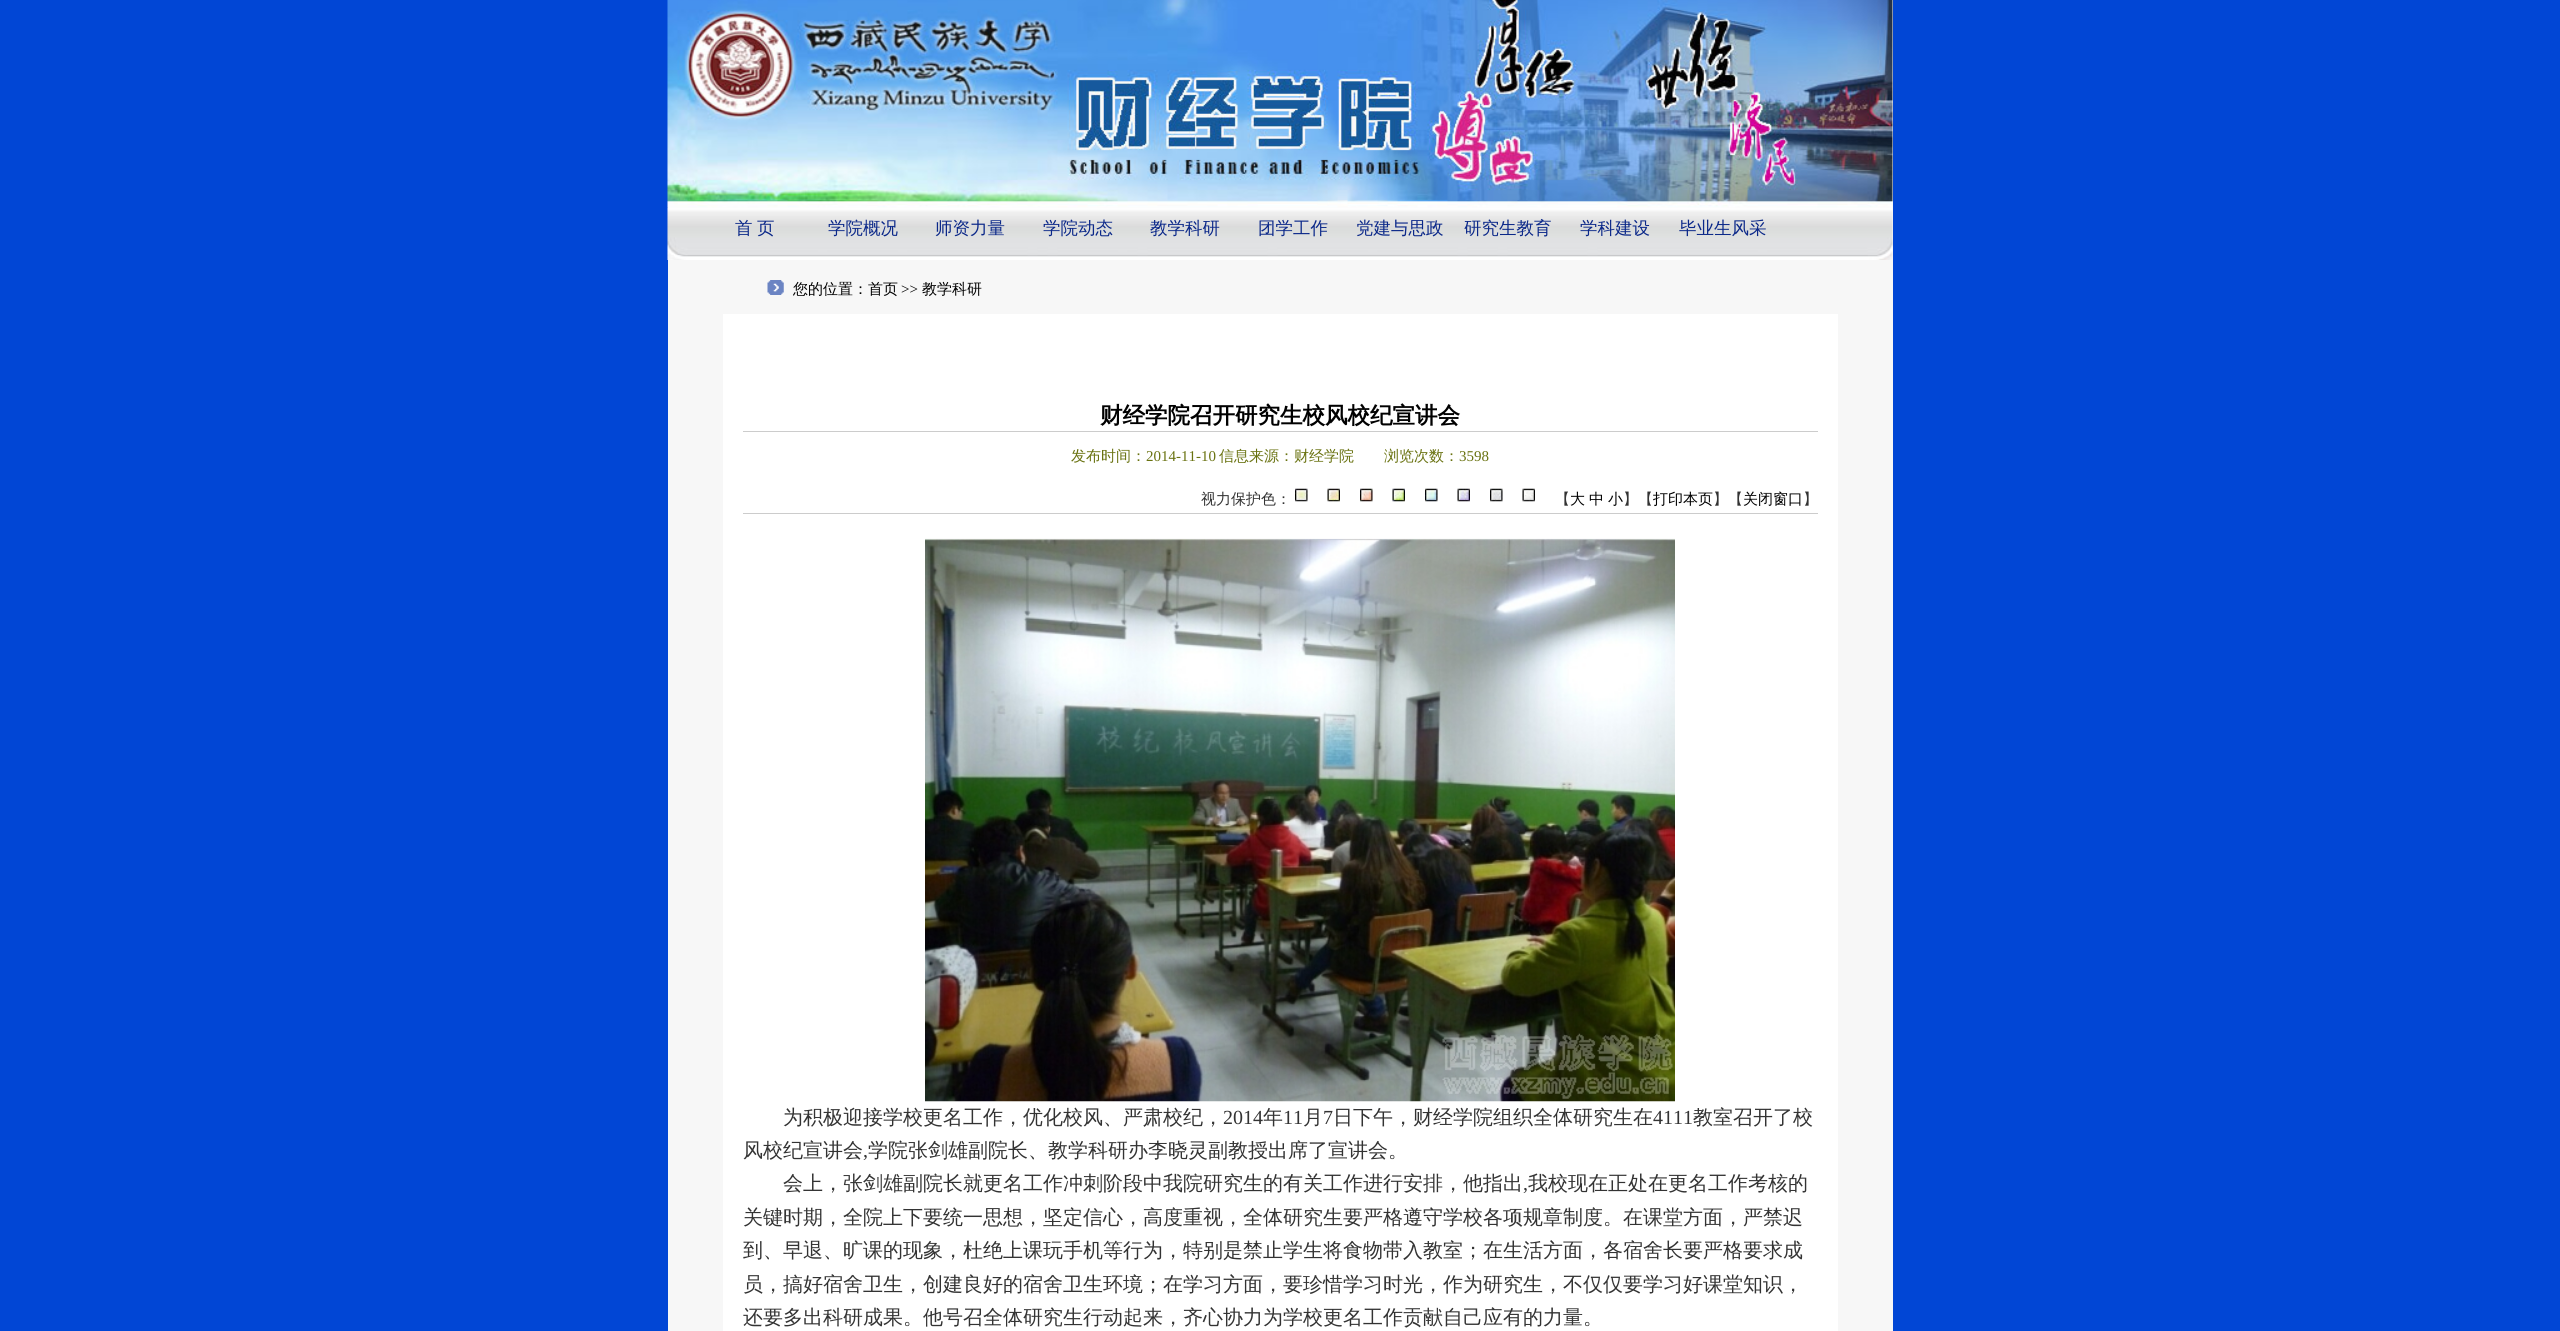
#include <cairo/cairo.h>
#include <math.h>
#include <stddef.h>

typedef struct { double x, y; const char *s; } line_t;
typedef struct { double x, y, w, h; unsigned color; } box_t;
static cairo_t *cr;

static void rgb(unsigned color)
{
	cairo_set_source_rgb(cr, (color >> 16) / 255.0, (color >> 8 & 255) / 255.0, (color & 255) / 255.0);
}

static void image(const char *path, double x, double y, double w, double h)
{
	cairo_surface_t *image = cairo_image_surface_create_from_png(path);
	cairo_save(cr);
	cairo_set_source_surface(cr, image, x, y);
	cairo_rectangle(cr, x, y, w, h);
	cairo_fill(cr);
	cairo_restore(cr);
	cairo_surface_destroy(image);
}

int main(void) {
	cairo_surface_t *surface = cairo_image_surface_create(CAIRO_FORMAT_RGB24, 2560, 1331);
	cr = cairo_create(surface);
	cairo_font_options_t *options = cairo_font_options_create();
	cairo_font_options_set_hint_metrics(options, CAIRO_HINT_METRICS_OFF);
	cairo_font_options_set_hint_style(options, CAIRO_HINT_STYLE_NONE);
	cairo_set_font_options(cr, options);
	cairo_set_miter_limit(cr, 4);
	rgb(0x0146d5);
	cairo_paint(cr);
	rgb(0xf7f7f7);
	cairo_rectangle(cr, 668, 0, 1225, 1331);
	cairo_fill(cr);
	image("img/1.png", 667, 0, 1226, 208);
	image("img/2.png", 667, 207, 1226, 53);
	image("img/3.png", 767, 280, 17, 15);
	{
		static const box_t items[] = {
			{723, 314, 1115, 1017, 0xffffff},
			{743, 431, 1075, 1, 0xcccccc},
			{743, 513, 1075, 1, 0xcccccc},
		};
		for (size_t i = 0; i < sizeof items / sizeof *items; i++) {
			rgb(items[i].color);
			cairo_rectangle(cr, items[i].x, items[i].y, items[i].w, items[i].h);
			cairo_fill(cr);
		}
	}
	image("img/4.png", 1295, 488, 13, 14);
	image("img/5.png", 1327, 488, 13, 14);
	image("img/6.png", 1360, 488, 13, 14);
	image("img/7.png", 1392, 488, 13, 14);
	image("img/8.png", 1425, 488, 13, 14);
	image("img/9.png", 1457, 488, 13, 14);
	image("img/10.png", 1490, 488, 13, 14);
	image("img/11.png", 1522, 488, 13, 14);
	image("img/12.png", 925, 538, 750, 564);
	cairo_select_font_face(cr, "WenQuanYi Zen Hei Medium", CAIRO_FONT_SLANT_NORMAL, CAIRO_FONT_WEIGHT_NORMAL);
	cairo_set_font_size(cr, 17.5);
	rgb(0x0b2889);
	{
		static const line_t items[] = {
			{735, 234, "首"},
			{757, 234, "页"},
			{828, 234, "学院概况"},
			{935, 234, "师资力量"},
			{1043, 234, "学院动态"},
			{1150, 234, "教学科研"},
			{1258, 234, "团学工作"},
			{1356, 234, "党建与思政"},
			{1464, 234, "研究生教育"},
			{1580, 234, "学科建设"},
			{1679, 234, "毕业生风采"},
		};
		for (size_t i = 0; i < sizeof items / sizeof *items; i++) {
			cairo_move_to(cr, items[i].x, items[i].y);
			cairo_show_text(cr, items[i].s);
		}
	}
	cairo_set_font_size(cr, 15);
	rgb(0x000000);
	cairo_move_to(cr, 793, 294);
	cairo_show_text(cr, "您的位置：首页");
	cairo_select_font_face(cr, "Liberation Serif", CAIRO_FONT_SLANT_NORMAL, CAIRO_FONT_WEIGHT_NORMAL);
	cairo_move_to(cr, 901, 294);
	cairo_show_text(cr, ">>");
	cairo_select_font_face(cr, "WenQuanYi Zen Hei Medium", CAIRO_FONT_SLANT_NORMAL, CAIRO_FONT_WEIGHT_NORMAL);
	cairo_move_to(cr, 922, 294);
	cairo_show_text(cr, "教学科研");
	cairo_select_font_face(cr, "WenQuanYi Zen Hei", CAIRO_FONT_SLANT_NORMAL, CAIRO_FONT_WEIGHT_BOLD);
	cairo_set_font_size(cr, 22.5);
	cairo_move_to(cr, 1100, 423);
	cairo_show_text(cr, "财经学院召开研究生校风校纪宣讲会");
	cairo_select_font_face(cr, "WenQuanYi Zen Hei Medium", CAIRO_FONT_SLANT_NORMAL, CAIRO_FONT_WEIGHT_NORMAL);
	cairo_set_font_size(cr, 15);
	rgb(0x697210);
	cairo_move_to(cr, 1071, 461);
	cairo_show_text(cr, "发布时间：");
	cairo_select_font_face(cr, "Liberation Serif", CAIRO_FONT_SLANT_NORMAL, CAIRO_FONT_WEIGHT_NORMAL);
	cairo_move_to(cr, 1146, 461);
	cairo_show_text(cr, "2014-11-10");
	cairo_select_font_face(cr, "WenQuanYi Zen Hei Medium", CAIRO_FONT_SLANT_NORMAL, CAIRO_FONT_WEIGHT_NORMAL);
	cairo_move_to(cr, 1219, 461);
	cairo_show_text(cr, "信息来源：财经学院　　浏览次数：");
	cairo_select_font_face(cr, "Liberation Serif", CAIRO_FONT_SLANT_NORMAL, CAIRO_FONT_WEIGHT_NORMAL);
	cairo_move_to(cr, 1459, 461);
	cairo_show_text(cr, "3598");
	cairo_select_font_face(cr, "WenQuanYi Zen Hei Medium", CAIRO_FONT_SLANT_NORMAL, CAIRO_FONT_WEIGHT_NORMAL);
	rgb(0x333333);
	cairo_move_to(cr, 1201, 504);
	cairo_show_text(cr, "视力保护色：");
	cairo_move_to(cr, 1555, 504);
	cairo_show_text(cr, "【");
	rgb(0x000000);
	{
		static const line_t items[] = {
			{1570, 504, "大"},
			{1589, 504, "中"},
			{1608, 504, "小"},
		};
		for (size_t i = 0; i < sizeof items / sizeof *items; i++) {
			cairo_move_to(cr, items[i].x, items[i].y);
			cairo_show_text(cr, items[i].s);
		}
	}
	rgb(0x333333);
	cairo_move_to(cr, 1623, 504);
	cairo_show_text(cr, "】【");
	rgb(0x000000);
	cairo_move_to(cr, 1653, 504);
	cairo_show_text(cr, "打印本页");
	rgb(0x333333);
	cairo_move_to(cr, 1713, 504);
	cairo_show_text(cr, "】【");
	rgb(0x000000);
	cairo_move_to(cr, 1743, 504);
	cairo_show_text(cr, "关闭窗口");
	rgb(0x333333);
	cairo_move_to(cr, 1803, 504);
	cairo_show_text(cr, "】");
	cairo_set_font_size(cr, 20);
	cairo_move_to(cr, 783, 1124);
	cairo_show_text(cr, "为积极迎接学校更名工作，优化校风、严肃校纪，");
	cairo_select_font_face(cr, "Liberation Serif", CAIRO_FONT_SLANT_NORMAL, CAIRO_FONT_WEIGHT_NORMAL);
	cairo_move_to(cr, 1223, 1124);
	cairo_show_text(cr, "2014");
	cairo_select_font_face(cr, "WenQuanYi Zen Hei Medium", CAIRO_FONT_SLANT_NORMAL, CAIRO_FONT_WEIGHT_NORMAL);
	cairo_move_to(cr, 1263, 1124);
	cairo_show_text(cr, "年");
	cairo_select_font_face(cr, "Liberation Serif", CAIRO_FONT_SLANT_NORMAL, CAIRO_FONT_WEIGHT_NORMAL);
	cairo_move_to(cr, 1283, 1124);
	cairo_show_text(cr, "11");
	cairo_select_font_face(cr, "WenQuanYi Zen Hei Medium", CAIRO_FONT_SLANT_NORMAL, CAIRO_FONT_WEIGHT_NORMAL);
	cairo_move_to(cr, 1303, 1124);
	cairo_show_text(cr, "月");
	cairo_select_font_face(cr, "Liberation Serif", CAIRO_FONT_SLANT_NORMAL, CAIRO_FONT_WEIGHT_NORMAL);
	cairo_move_to(cr, 1323, 1124);
	cairo_show_text(cr, "7");
	cairo_select_font_face(cr, "WenQuanYi Zen Hei Medium", CAIRO_FONT_SLANT_NORMAL, CAIRO_FONT_WEIGHT_NORMAL);
	cairo_move_to(cr, 1333, 1124);
	cairo_show_text(cr, "日下午，财经学院组织全体研究生在");
	cairo_select_font_face(cr, "Liberation Serif", CAIRO_FONT_SLANT_NORMAL, CAIRO_FONT_WEIGHT_NORMAL);
	cairo_move_to(cr, 1653, 1124);
	cairo_show_text(cr, "4111");
	cairo_select_font_face(cr, "WenQuanYi Zen Hei Medium", CAIRO_FONT_SLANT_NORMAL, CAIRO_FONT_WEIGHT_NORMAL);
	cairo_move_to(cr, 1693, 1124);
	cairo_show_text(cr, "教室召开了校");
	cairo_move_to(cr, 743, 1157);
	cairo_show_text(cr, "风校纪宣讲会");
	cairo_select_font_face(cr, "Liberation Serif", CAIRO_FONT_SLANT_NORMAL, CAIRO_FONT_WEIGHT_NORMAL);
	cairo_move_to(cr, 863, 1157);
	cairo_show_text(cr, ",");
	cairo_select_font_face(cr, "WenQuanYi Zen Hei Medium", CAIRO_FONT_SLANT_NORMAL, CAIRO_FONT_WEIGHT_NORMAL);
	cairo_move_to(cr, 868, 1157);
	cairo_show_text(cr, "学院张剑雄副院长、教学科研办李晓灵副教授出席了宣讲会。");
	cairo_move_to(cr, 783, 1190);
	cairo_show_text(cr, "会上，张剑雄副院长就更名工作冲刺阶段中我院研究生的有关工作进行安排，他指出");
	cairo_select_font_face(cr, "Liberation Serif", CAIRO_FONT_SLANT_NORMAL, CAIRO_FONT_WEIGHT_NORMAL);
	cairo_move_to(cr, 1523, 1190);
	cairo_show_text(cr, ",");
	cairo_select_font_face(cr, "WenQuanYi Zen Hei Medium", CAIRO_FONT_SLANT_NORMAL, CAIRO_FONT_WEIGHT_NORMAL);
	{
		static const line_t items[] = {
			{1528, 1190, "我校现在正处在更名工作考核的"},
			{743, 1224, "关键时期，全院上下要统一思想，坚定信心，高度重视，全体研究生要严格遵守学校各项规章制度。在课堂方面，严禁迟"},
			{743, 1257, "到、早退、旷课的现象，杜绝上课玩手机等行为，特别是禁止学生将食物带入教室；在生活方面，各宿舍长要严格要求成"},
			{743, 1291, "员，搞好宿舍卫生，创建良好的宿舍卫生环境；在学习方面，要珍惜学习时光，作为研究生，不仅仅要学习好课堂知识，"},
			{743, 1324, "还要多出科研成果。他号召全体研究生行动起来，齐心协力为学校更名工作贡献自己应有的力量。"},
		};
		for (size_t i = 0; i < sizeof items / sizeof *items; i++) {
			cairo_move_to(cr, items[i].x, items[i].y);
			cairo_show_text(cr, items[i].s);
		}
	}
	cairo_surface_write_to_png(surface, "page.png");
	cairo_font_options_destroy(options);
	cairo_destroy(cr);
	cairo_surface_destroy(surface);
	return 0;
}
